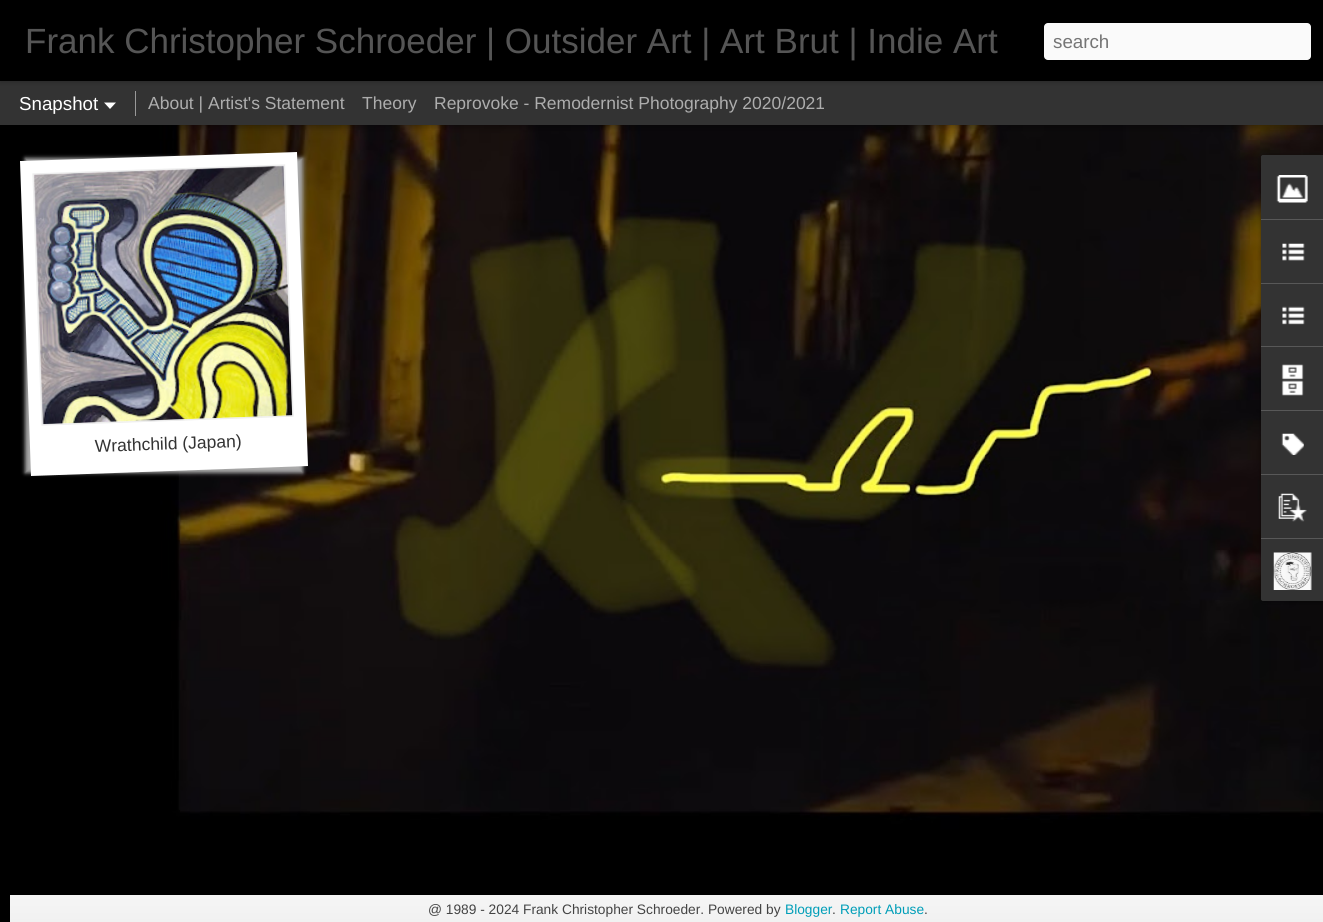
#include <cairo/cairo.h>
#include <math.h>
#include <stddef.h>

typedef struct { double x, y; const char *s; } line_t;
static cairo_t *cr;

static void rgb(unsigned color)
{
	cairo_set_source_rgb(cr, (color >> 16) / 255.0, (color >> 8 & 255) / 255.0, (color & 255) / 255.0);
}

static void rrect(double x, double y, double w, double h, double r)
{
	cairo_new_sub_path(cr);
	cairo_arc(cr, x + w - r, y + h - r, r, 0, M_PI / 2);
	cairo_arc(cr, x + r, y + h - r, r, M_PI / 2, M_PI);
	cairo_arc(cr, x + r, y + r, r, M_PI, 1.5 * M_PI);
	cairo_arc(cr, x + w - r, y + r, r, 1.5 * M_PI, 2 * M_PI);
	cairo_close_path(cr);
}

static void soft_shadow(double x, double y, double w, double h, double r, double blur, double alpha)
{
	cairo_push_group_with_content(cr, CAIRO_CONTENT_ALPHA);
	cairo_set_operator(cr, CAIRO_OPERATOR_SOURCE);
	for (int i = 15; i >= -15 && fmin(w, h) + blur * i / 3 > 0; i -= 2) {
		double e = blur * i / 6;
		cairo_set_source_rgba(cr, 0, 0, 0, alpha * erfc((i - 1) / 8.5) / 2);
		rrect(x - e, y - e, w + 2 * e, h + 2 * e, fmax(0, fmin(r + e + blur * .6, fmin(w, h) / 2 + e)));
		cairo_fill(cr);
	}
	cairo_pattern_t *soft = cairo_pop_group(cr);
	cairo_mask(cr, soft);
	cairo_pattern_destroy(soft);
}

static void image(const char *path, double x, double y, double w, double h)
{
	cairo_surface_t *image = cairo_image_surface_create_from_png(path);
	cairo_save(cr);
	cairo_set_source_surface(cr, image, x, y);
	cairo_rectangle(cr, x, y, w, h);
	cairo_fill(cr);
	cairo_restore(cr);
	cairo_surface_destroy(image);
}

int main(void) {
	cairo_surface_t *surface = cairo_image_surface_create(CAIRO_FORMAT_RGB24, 1323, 922);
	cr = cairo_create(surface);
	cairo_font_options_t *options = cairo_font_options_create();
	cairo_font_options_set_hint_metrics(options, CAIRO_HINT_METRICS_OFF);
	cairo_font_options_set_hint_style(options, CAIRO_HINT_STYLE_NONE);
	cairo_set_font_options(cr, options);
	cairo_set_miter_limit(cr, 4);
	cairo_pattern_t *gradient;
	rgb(0xffffff);
	cairo_paint(cr);
	image("img/1.png", 0, 125, 1323, 797);
	rgb(0x000000);
	soft_shadow(0, 81, 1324, 44, 0, 5, 0.5);
	rgb(0x333333);
	cairo_rectangle(cr, 0, 81, 1323, 44);
	cairo_fill(cr);
	rgb(0x000000);
	soft_shadow(0, 0, 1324, 81, 0, 3, 0.3);
	rgb(0x000000);
	cairo_rectangle(cr, 0, 0, 1323, 81);
	cairo_fill(cr);
	rgb(0xfafafa);
	rrect(1044, 23, 267, 37, 4);
	cairo_fill(cr);
	rgb(0xffffff);
	cairo_new_path(cr);
	cairo_move_to(cr, 104, 102.5);
	cairo_line_to(cr, 116, 102.5);
	cairo_line_to(cr, 110, 109);
	cairo_close_path(cr);
	cairo_fill(cr);
	rgb(0x999999);
	cairo_rectangle(cr, 135, 91, 1, 25);
	cairo_fill(cr);
	rgb(0xaaaaaa);
	soft_shadow(25, 158, 278, 315, 0, 2, 1);
	rgb(0xffffff);
	cairo_new_path(cr);
	cairo_move_to(cr, 20, 161);
	cairo_line_to(cr, 297, 152);
	cairo_line_to(cr, 308, 466);
	cairo_line_to(cr, 31, 476);
	cairo_close_path(cr);
	cairo_fill(cr);
	image("img/2.png", 33, 165, 261, 260);
	cairo_new_path(cr);
	cairo_move_to(cr, 33, 174);
	cairo_line_to(cr, 284.5, 165);
	cairo_line_to(cr, 293, 416);
	cairo_line_to(cr, 42, 425);
	cairo_close_path(cr);
	rgb(0xeeeeee);
	cairo_set_line_width(cr, 1.3);
	cairo_stroke(cr);
	rgb(0x000000);
	soft_shadow(1261, 156, 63, 447, 2.5, 2, 0.3);
	rgb(0x333333);
	cairo_new_path(cr);
	cairo_move_to(cr, 1263.5, 155);
	cairo_line_to(cr, 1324, 155);
	cairo_line_to(cr, 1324, 601);
	cairo_line_to(cr, 1263.5, 601);
	cairo_curve_to(cr, 1262, 601, 1261, 600, 1261, 598.5);
	cairo_line_to(cr, 1261, 157.5);
	cairo_curve_to(cr, 1261, 156, 1262, 155, 1263.5, 155);
	cairo_close_path(cr);
	cairo_fill(cr);
	cairo_new_path(cr);
	cairo_move_to(cr, 1263.5, 155);
	cairo_line_to(cr, 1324, 155);
	cairo_line_to(cr, 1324, 219);
	cairo_line_to(cr, 1261, 219);
	cairo_line_to(cr, 1261, 157.5);
	cairo_curve_to(cr, 1261, 156, 1262, 155, 1263.5, 155);
	cairo_close_path(cr);
	cairo_fill(cr);
	image("img/3.png", 1276, 175, 32, 28);
	rgb(0x585858);
	cairo_rectangle(cr, 1261, 219, 62, 1);
	cairo_fill(cr);
	image("img/4.png", 1282, 243, 23, 18);
	cairo_rectangle(cr, 1261, 283, 62, 1);
	cairo_fill(cr);
	image("img/5.png", 1282, 306, 23, 19);
	cairo_rectangle(cr, 1261, 346, 62, 1);
	cairo_fill(cr);
	image("img/6.png", 1281, 364, 23, 32);
	cairo_rectangle(cr, 1261, 410, 62, 1);
	cairo_fill(cr);
	image("img/7.png", 1281, 433, 23, 22);
	cairo_rectangle(cr, 1261, 474, 62, 1);
	cairo_fill(cr);
	image("img/8.png", 1278, 493, 29, 29);
	rgb(0x333333);
	cairo_new_path(cr);
	cairo_move_to(cr, 1261, 538);
	cairo_line_to(cr, 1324, 538);
	cairo_line_to(cr, 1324, 601);
	cairo_line_to(cr, 1263.5, 601);
	cairo_curve_to(cr, 1262, 601, 1261, 600, 1261, 598.5);
	cairo_close_path(cr);
	cairo_fill(cr);
	rgb(0x585858);
	cairo_rectangle(cr, 1261, 538, 62, 1);
	cairo_fill(cr);
	image("img/9.png", 1273, 552, 39, 38);
	gradient = cairo_pattern_create_linear(678, 895, 678, 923);
	cairo_pattern_add_color_stop_rgba(gradient, 0, 0.961, 0.961, 0.961, 1);
	cairo_pattern_add_color_stop_rgba(gradient, 1, 0.945, 0.945, 0.945, 1);
	cairo_set_source(cr, gradient);
	cairo_pattern_destroy(gradient);
	cairo_rectangle(cr, 10, 895, 1313, 27);
	cairo_fill(cr);
	cairo_select_font_face(cr, "Liberation Sans", CAIRO_FONT_SLANT_NORMAL, CAIRO_FONT_WEIGHT_NORMAL);
	cairo_set_font_size(cr, 35);
	rgb(0x555555);
	cairo_move_to(cr, 25, 53);
	cairo_show_text(cr, "Frank Christopher Schroeder | Outsider Art | Art Brut | Indie Art");
	cairo_set_font_size(cr, 18.75);
	rgb(0x757575);
	cairo_move_to(cr, 1053, 48);
	cairo_show_text(cr, "search");
	rgb(0xffffff);
	cairo_move_to(cr, 19, 110);
	cairo_show_text(cr, "Snapshot");
	cairo_set_font_size(cr, 17.5);
	rgb(0xadadad);
	{
		static const line_t items[] = {
			{148, 109, "About | Artist's Statement"},
			{362, 109, "Theory"},
			{434, 109, "Reprovoke - Remodernist Photography 2020/2021"},
		};
		for (size_t i = 0; i < sizeof items / sizeof *items; i++) {
			cairo_move_to(cr, items[i].x, items[i].y);
			cairo_show_text(cr, items[i].s);
		}
	}
	rgb(0x333333);
	cairo_save(cr);
	cairo_translate(cr, 95, 452);
	cairo_rotate(cr, -2 * M_PI / 180);
	cairo_move_to(cr, 0, 0);
	cairo_show_text(cr, "Wrathchild (Japan)");
	cairo_restore(cr);
	cairo_set_font_size(cr, 13.75);
	rgb(0x444444);
	cairo_move_to(cr, 428, 914);
	cairo_show_text(cr, "@ 1989 - 2024 Frank Christopher Schroeder. Powered by");
	rgb(0x009eb8);
	cairo_move_to(cr, 785, 914);
	cairo_show_text(cr, "Blogger");
	rgb(0x444444);
	cairo_move_to(cr, 832, 914);
	cairo_show_text(cr, ".");
	rgb(0x009eb8);
	cairo_move_to(cr, 840, 914);
	cairo_show_text(cr, "Report Abuse");
	rgb(0x444444);
	cairo_move_to(cr, 924, 914);
	cairo_show_text(cr, ".");
	cairo_surface_write_to_png(surface, "page.png");
	cairo_font_options_destroy(options);
	cairo_destroy(cr);
	cairo_surface_destroy(surface);
	return 0;
}
